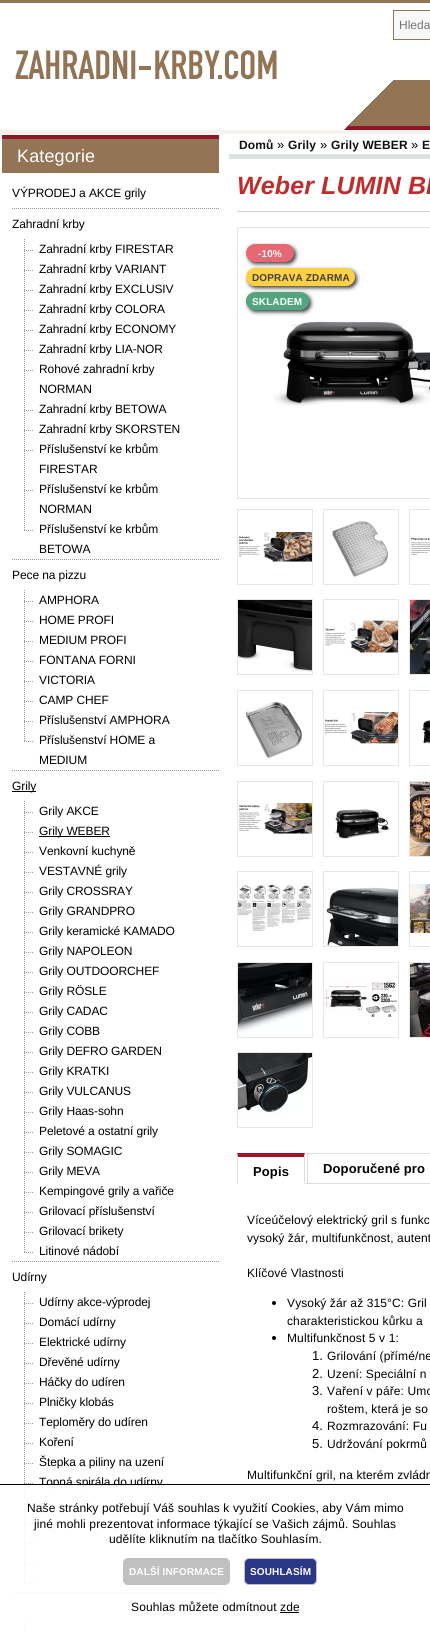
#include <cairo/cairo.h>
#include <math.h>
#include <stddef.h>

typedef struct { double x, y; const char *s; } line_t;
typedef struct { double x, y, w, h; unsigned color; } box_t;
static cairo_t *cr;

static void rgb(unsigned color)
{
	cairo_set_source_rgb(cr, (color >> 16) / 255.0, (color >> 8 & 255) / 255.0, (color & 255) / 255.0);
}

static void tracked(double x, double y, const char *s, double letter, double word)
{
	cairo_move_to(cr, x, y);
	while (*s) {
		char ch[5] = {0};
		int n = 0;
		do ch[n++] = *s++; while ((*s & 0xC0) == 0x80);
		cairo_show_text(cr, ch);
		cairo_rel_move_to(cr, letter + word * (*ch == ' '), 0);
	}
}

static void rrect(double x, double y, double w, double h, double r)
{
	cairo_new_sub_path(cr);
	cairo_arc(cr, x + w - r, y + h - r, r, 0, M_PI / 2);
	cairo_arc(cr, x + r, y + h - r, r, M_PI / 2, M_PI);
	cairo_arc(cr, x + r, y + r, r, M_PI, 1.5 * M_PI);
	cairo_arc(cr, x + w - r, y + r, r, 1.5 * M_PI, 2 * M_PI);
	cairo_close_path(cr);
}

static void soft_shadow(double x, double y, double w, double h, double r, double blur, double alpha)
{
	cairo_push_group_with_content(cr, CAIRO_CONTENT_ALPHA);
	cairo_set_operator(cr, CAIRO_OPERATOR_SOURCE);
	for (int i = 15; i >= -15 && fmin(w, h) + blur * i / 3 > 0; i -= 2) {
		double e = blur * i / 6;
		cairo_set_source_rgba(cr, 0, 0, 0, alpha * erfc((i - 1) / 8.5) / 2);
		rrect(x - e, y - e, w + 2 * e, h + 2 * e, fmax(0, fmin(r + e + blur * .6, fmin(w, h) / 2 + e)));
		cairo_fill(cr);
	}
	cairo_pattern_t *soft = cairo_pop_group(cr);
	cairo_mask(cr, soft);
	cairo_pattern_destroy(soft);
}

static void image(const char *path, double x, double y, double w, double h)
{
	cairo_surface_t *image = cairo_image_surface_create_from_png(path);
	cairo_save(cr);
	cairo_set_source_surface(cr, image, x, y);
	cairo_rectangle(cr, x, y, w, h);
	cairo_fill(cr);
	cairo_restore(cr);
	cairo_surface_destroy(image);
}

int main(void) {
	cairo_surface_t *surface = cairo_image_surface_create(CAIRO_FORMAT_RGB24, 430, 1632);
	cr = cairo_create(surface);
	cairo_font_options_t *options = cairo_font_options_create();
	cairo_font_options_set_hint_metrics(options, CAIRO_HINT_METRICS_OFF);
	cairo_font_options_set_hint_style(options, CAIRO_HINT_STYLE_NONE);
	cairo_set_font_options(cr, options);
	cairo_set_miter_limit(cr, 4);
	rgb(0xf7f2ee);
	cairo_paint(cr);
	image("img/1.png", 0, 0, 430, 130);
	image("img/2.png", 344, 80, 86, 50);
	rgb(0xf8f8f8);
	cairo_rectangle(cr, 393.5, 10.5, 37, 29);
	cairo_fill_preserve(cr);
	rgb(0x937455);
	cairo_set_line_width(cr, 1);
	cairo_stroke(cr);
	image("img/3.png", 15, 50, 262, 30);
	{
		static const box_t items[] = {
			{0, 134, 430, 1498, 0xffffff},
			{2, 139, 217, 34, 0x937455},
			{2, 135, 217, 4, 0x8f1629},
		};
		for (size_t i = 0; i < sizeof items / sizeof *items; i++) {
			rgb(items[i].color);
			cairo_rectangle(cr, items[i].x, items[i].y, items[i].w, items[i].h);
			cairo_fill(cr);
		}
	}
	cairo_new_path(cr);
	cairo_move_to(cr, 12, 208.5);
	cairo_line_to(cr, 219, 208.5);
	rgb(0x999999);
	cairo_set_dash(cr, (double[]){1, 1}, 2, 0);
	cairo_stroke(cr);
	cairo_new_path(cr);
	cairo_move_to(cr, 12, 559.5);
	cairo_line_to(cr, 219, 559.5);
	cairo_stroke(cr);
	cairo_new_path(cr);
	cairo_move_to(cr, 24.5, 239);
	cairo_line_to(cr, 24.5, 559);
	cairo_stroke(cr);
	cairo_new_path(cr);
	cairo_move_to(cr, 24, 250.5);
	cairo_line_to(cr, 34, 250.5);
	cairo_stroke(cr);
	cairo_new_path(cr);
	cairo_move_to(cr, 24, 270.5);
	cairo_line_to(cr, 34, 270.5);
	cairo_stroke(cr);
	cairo_new_path(cr);
	cairo_move_to(cr, 24, 290.5);
	cairo_line_to(cr, 34, 290.5);
	cairo_stroke(cr);
	cairo_new_path(cr);
	cairo_move_to(cr, 24, 310.5);
	cairo_line_to(cr, 34, 310.5);
	cairo_stroke(cr);
	cairo_new_path(cr);
	cairo_move_to(cr, 24, 330.5);
	cairo_line_to(cr, 34, 330.5);
	cairo_stroke(cr);
	cairo_new_path(cr);
	cairo_move_to(cr, 24, 350.5);
	cairo_line_to(cr, 34, 350.5);
	cairo_stroke(cr);
	cairo_new_path(cr);
	cairo_move_to(cr, 24, 370.5);
	cairo_line_to(cr, 34, 370.5);
	cairo_stroke(cr);
	cairo_new_path(cr);
	cairo_move_to(cr, 24, 410.5);
	cairo_line_to(cr, 34, 410.5);
	cairo_stroke(cr);
	cairo_new_path(cr);
	cairo_move_to(cr, 24, 430.5);
	cairo_line_to(cr, 34, 430.5);
	cairo_stroke(cr);
	cairo_new_path(cr);
	cairo_move_to(cr, 24, 450.5);
	cairo_line_to(cr, 34, 450.5);
	cairo_stroke(cr);
	cairo_new_path(cr);
	cairo_move_to(cr, 24, 490.5);
	cairo_line_to(cr, 34, 490.5);
	cairo_stroke(cr);
	rgb(0xffffff);
	cairo_rectangle(cr, 24, 531, 1, 27);
	cairo_fill(cr);
	cairo_new_path(cr);
	cairo_move_to(cr, 24, 530.5);
	cairo_line_to(cr, 34, 530.5);
	rgb(0x999999);
	cairo_stroke(cr);
	cairo_new_path(cr);
	cairo_move_to(cr, 12, 770.5);
	cairo_line_to(cr, 219, 770.5);
	cairo_stroke(cr);
	cairo_new_path(cr);
	cairo_move_to(cr, 24.5, 590);
	cairo_line_to(cr, 24.5, 770);
	cairo_stroke(cr);
	cairo_new_path(cr);
	cairo_move_to(cr, 24, 601.5);
	cairo_line_to(cr, 34, 601.5);
	cairo_stroke(cr);
	cairo_new_path(cr);
	cairo_move_to(cr, 24, 621.5);
	cairo_line_to(cr, 34, 621.5);
	cairo_stroke(cr);
	cairo_new_path(cr);
	cairo_move_to(cr, 24, 641.5);
	cairo_line_to(cr, 34, 641.5);
	cairo_stroke(cr);
	cairo_new_path(cr);
	cairo_move_to(cr, 24, 661.5);
	cairo_line_to(cr, 34, 661.5);
	cairo_stroke(cr);
	cairo_new_path(cr);
	cairo_move_to(cr, 24, 681.5);
	cairo_line_to(cr, 34, 681.5);
	cairo_stroke(cr);
	cairo_new_path(cr);
	cairo_move_to(cr, 24, 701.5);
	cairo_line_to(cr, 34, 701.5);
	cairo_stroke(cr);
	cairo_new_path(cr);
	cairo_move_to(cr, 24, 721.5);
	cairo_line_to(cr, 34, 721.5);
	cairo_stroke(cr);
	rgb(0xffffff);
	cairo_rectangle(cr, 24, 742, 1, 27);
	cairo_fill(cr);
	cairo_new_path(cr);
	cairo_move_to(cr, 24, 741.5);
	cairo_line_to(cr, 34, 741.5);
	rgb(0x999999);
	cairo_stroke(cr);
	cairo_new_path(cr);
	cairo_move_to(cr, 12, 1261.5);
	cairo_line_to(cr, 219, 1261.5);
	cairo_stroke(cr);
	rgb(0x000000);
	cairo_rectangle(cr, 12, 791, 24, 1);
	cairo_fill(cr);
	cairo_new_path(cr);
	cairo_move_to(cr, 24.5, 801);
	cairo_line_to(cr, 24.5, 1261);
	rgb(0x999999);
	cairo_stroke(cr);
	cairo_new_path(cr);
	cairo_move_to(cr, 24, 812.5);
	cairo_line_to(cr, 34, 812.5);
	cairo_stroke(cr);
	cairo_new_path(cr);
	cairo_move_to(cr, 24, 832.5);
	cairo_line_to(cr, 34, 832.5);
	cairo_stroke(cr);
	rgb(0x000000);
	cairo_rectangle(cr, 39, 836, 71, 1);
	cairo_fill(cr);
	cairo_new_path(cr);
	cairo_move_to(cr, 24, 852.5);
	cairo_line_to(cr, 34, 852.5);
	rgb(0x999999);
	cairo_stroke(cr);
	cairo_new_path(cr);
	cairo_move_to(cr, 24, 872.5);
	cairo_line_to(cr, 34, 872.5);
	cairo_stroke(cr);
	cairo_new_path(cr);
	cairo_move_to(cr, 24, 892.5);
	cairo_line_to(cr, 34, 892.5);
	cairo_stroke(cr);
	cairo_new_path(cr);
	cairo_move_to(cr, 24, 912.5);
	cairo_line_to(cr, 34, 912.5);
	cairo_stroke(cr);
	cairo_new_path(cr);
	cairo_move_to(cr, 24, 932.5);
	cairo_line_to(cr, 34, 932.5);
	cairo_stroke(cr);
	cairo_new_path(cr);
	cairo_move_to(cr, 24, 952.5);
	cairo_line_to(cr, 34, 952.5);
	cairo_stroke(cr);
	cairo_new_path(cr);
	cairo_move_to(cr, 24, 972.5);
	cairo_line_to(cr, 34, 972.5);
	cairo_stroke(cr);
	cairo_new_path(cr);
	cairo_move_to(cr, 24, 992.5);
	cairo_line_to(cr, 34, 992.5);
	cairo_stroke(cr);
	cairo_new_path(cr);
	cairo_move_to(cr, 24, 1012.5);
	cairo_line_to(cr, 34, 1012.5);
	cairo_stroke(cr);
	cairo_new_path(cr);
	cairo_move_to(cr, 24, 1032.5);
	cairo_line_to(cr, 34, 1032.5);
	cairo_stroke(cr);
	cairo_new_path(cr);
	cairo_move_to(cr, 24, 1052.5);
	cairo_line_to(cr, 34, 1052.5);
	cairo_stroke(cr);
	cairo_new_path(cr);
	cairo_move_to(cr, 24, 1072.5);
	cairo_line_to(cr, 34, 1072.5);
	cairo_stroke(cr);
	cairo_new_path(cr);
	cairo_move_to(cr, 24, 1092.5);
	cairo_line_to(cr, 34, 1092.5);
	cairo_stroke(cr);
	cairo_new_path(cr);
	cairo_move_to(cr, 24, 1112.5);
	cairo_line_to(cr, 34, 1112.5);
	cairo_stroke(cr);
	cairo_new_path(cr);
	cairo_move_to(cr, 24, 1132.5);
	cairo_line_to(cr, 34, 1132.5);
	cairo_stroke(cr);
	cairo_new_path(cr);
	cairo_move_to(cr, 24, 1152.5);
	cairo_line_to(cr, 34, 1152.5);
	cairo_stroke(cr);
	cairo_new_path(cr);
	cairo_move_to(cr, 24, 1172.5);
	cairo_line_to(cr, 34, 1172.5);
	cairo_stroke(cr);
	cairo_new_path(cr);
	cairo_move_to(cr, 24, 1192.5);
	cairo_line_to(cr, 34, 1192.5);
	cairo_stroke(cr);
	cairo_new_path(cr);
	cairo_move_to(cr, 24, 1212.5);
	cairo_line_to(cr, 34, 1212.5);
	cairo_stroke(cr);
	cairo_new_path(cr);
	cairo_move_to(cr, 24, 1232.5);
	cairo_line_to(cr, 34, 1232.5);
	cairo_stroke(cr);
	rgb(0xffffff);
	cairo_rectangle(cr, 24, 1253, 1, 7);
	cairo_fill(cr);
	cairo_new_path(cr);
	cairo_move_to(cr, 24, 1252.5);
	cairo_line_to(cr, 34, 1252.5);
	rgb(0x999999);
	cairo_stroke(cr);
	cairo_new_path(cr);
	cairo_move_to(cr, 12, 1592.5);
	cairo_line_to(cr, 219, 1592.5);
	cairo_stroke(cr);
	cairo_new_path(cr);
	cairo_move_to(cr, 24.5, 1292);
	cairo_line_to(cr, 24.5, 1592);
	cairo_stroke(cr);
	cairo_new_path(cr);
	cairo_move_to(cr, 24, 1303.5);
	cairo_line_to(cr, 34, 1303.5);
	cairo_stroke(cr);
	cairo_new_path(cr);
	cairo_move_to(cr, 24, 1323.5);
	cairo_line_to(cr, 34, 1323.5);
	cairo_stroke(cr);
	cairo_new_path(cr);
	cairo_move_to(cr, 24, 1343.5);
	cairo_line_to(cr, 34, 1343.5);
	cairo_stroke(cr);
	cairo_new_path(cr);
	cairo_move_to(cr, 24, 1363.5);
	cairo_line_to(cr, 34, 1363.5);
	cairo_stroke(cr);
	cairo_new_path(cr);
	cairo_move_to(cr, 24, 1383.5);
	cairo_line_to(cr, 34, 1383.5);
	cairo_stroke(cr);
	cairo_new_path(cr);
	cairo_move_to(cr, 24, 1403.5);
	cairo_line_to(cr, 34, 1403.5);
	cairo_stroke(cr);
	cairo_new_path(cr);
	cairo_move_to(cr, 24, 1423.5);
	cairo_line_to(cr, 34, 1423.5);
	cairo_stroke(cr);
	cairo_new_path(cr);
	cairo_move_to(cr, 24, 1443.5);
	cairo_line_to(cr, 34, 1443.5);
	cairo_stroke(cr);
	cairo_new_path(cr);
	cairo_move_to(cr, 24, 1463.5);
	cairo_line_to(cr, 34, 1463.5);
	cairo_stroke(cr);
	cairo_new_path(cr);
	cairo_move_to(cr, 24, 1483.5);
	cairo_line_to(cr, 34, 1483.5);
	cairo_move_to(cr, 24, 1503.5);
	cairo_line_to(cr, 34, 1503.5);
	cairo_move_to(cr, 24, 1523.5);
	cairo_line_to(cr, 34, 1523.5);
	cairo_move_to(cr, 24, 1543.5);
	cairo_line_to(cr, 34, 1543.5);
	cairo_stroke(cr);
	cairo_new_path(cr);
	cairo_move_to(cr, 24, 1563.5);
	cairo_line_to(cr, 34, 1563.5);
	cairo_stroke(cr);
	rgb(0xffffff);
	cairo_rectangle(cr, 24, 1584, 1, 7);
	cairo_fill(cr);
	cairo_new_path(cr);
	cairo_move_to(cr, 24, 1583.5);
	cairo_line_to(cr, 34, 1583.5);
	cairo_move_to(cr, 24.5, 1623);
	cairo_line_to(cr, 24.5, 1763);
	rgb(0x999999);
	cairo_stroke(cr);
	rgb(0xdee2e2);
	cairo_rectangle(cr, 229, 154, 201, 5);
	cairo_fill(cr);
	rgb(0xd6cfc6);
	cairo_rectangle(cr, 237, 211, 193, 1);
	cairo_fill(cr);
	cairo_rectangle(cr, 237.5, 227.5, 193, 271);
	rgb(0xe7e7e7);
	cairo_set_dash(cr, NULL, 0, 0);
	cairo_stroke(cr);
	rgb(0x404040);
	soft_shadow(248, 246, 48, 18, 9, 2, 1);
	rgb(0xe56874);
	rrect(246, 244, 48, 18, 9);
	cairo_fill(cr);
	rgb(0x000000);
	soft_shadow(248, 270, 109, 18, 9, 2, 0.75);
	rgb(0xffd045);
	rrect(246, 268, 109, 18, 9);
	cairo_fill(cr);
	rgb(0x000000);
	soft_shadow(248, 294, 63, 18, 9, 2, 0.75);
	rgb(0x52a57f);
	rrect(246, 292, 63, 18, 9);
	cairo_fill(cr);
	image("img/4.png", 273, 321, 157, 85);
	cairo_rectangle(cr, 237.5, 509.5, 75, 75);
	rgb(0xe7e7e7);
	cairo_stroke(cr);
	image("img/5.png", 239, 532, 73, 30);
	cairo_rectangle(cr, 323.5, 509.5, 75, 75);
	cairo_stroke(cr);
	image("img/6.png", 332, 521, 56, 56);
	cairo_rectangle(cr, 409.5, 509.5, 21, 75);
	cairo_stroke(cr);
	image("img/7.png", 411, 537, 19, 18);
	cairo_rectangle(cr, 237.5, 599.5, 75, 75);
	cairo_stroke(cr);
	image("img/8.png", 238, 600, 74, 72);
	cairo_rectangle(cr, 323.5, 599.5, 75, 75);
	cairo_stroke(cr);
	image("img/9.png", 325, 620, 73, 33);
	cairo_rectangle(cr, 409.5, 599.5, 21, 75);
	cairo_stroke(cr);
	image("img/10.png", 410, 600, 20, 74);
	cairo_rectangle(cr, 237.5, 690.5, 75, 75);
	cairo_stroke(cr);
	image("img/11.png", 245, 702, 57, 57);
	cairo_rectangle(cr, 323.5, 690.5, 75, 75);
	cairo_stroke(cr);
	image("img/12.png", 325, 712, 73, 32);
	cairo_rectangle(cr, 409.5, 690.5, 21, 75);
	cairo_stroke(cr);
	image("img/13.png", 422, 720, 8, 24);
	cairo_rectangle(cr, 237.5, 781.5, 75, 75);
	cairo_stroke(cr);
	image("img/14.png", 239, 803, 73, 31);
	cairo_rectangle(cr, 323.5, 781.5, 75, 75);
	cairo_stroke(cr);
	image("img/15.png", 334, 809, 57, 30);
	cairo_rectangle(cr, 409.5, 781.5, 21, 75);
	cairo_stroke(cr);
	image("img/16.png", 410, 782, 20, 74);
	cairo_rectangle(cr, 237.5, 871.5, 75, 75);
	cairo_stroke(cr);
	image("img/17.png", 238, 880, 74, 54);
	cairo_rectangle(cr, 323.5, 871.5, 75, 75);
	cairo_stroke(cr);
	image("img/18.png", 324, 887, 74, 59);
	cairo_rectangle(cr, 409.5, 871.5, 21, 75);
	cairo_stroke(cr);
	image("img/19.png", 410, 882, 20, 54);
	cairo_rectangle(cr, 237.5, 962.5, 75, 75);
	cairo_stroke(cr);
	image("img/20.png", 238, 963, 74, 70);
	cairo_rectangle(cr, 323.5, 962.5, 75, 75);
	cairo_stroke(cr);
	image("img/21.png", 324, 979, 74, 40);
	cairo_rectangle(cr, 409.5, 962.5, 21, 75);
	cairo_stroke(cr);
	image("img/22.png", 410, 963, 20, 74);
	cairo_rectangle(cr, 237.5, 1052.5, 75, 75);
	cairo_stroke(cr);
	image("img/23.png", 238, 1053, 74, 64);
	rgb(0xdddddd);
	cairo_rectangle(cr, 305, 1183, 125, 1);
	cairo_fill(cr);
	rgb(0xab102b);
	cairo_new_path(cr);
	cairo_move_to(cr, 237, 1153);
	cairo_line_to(cr, 305, 1153);
	cairo_line_to(cr, 304, 1157);
	cairo_line_to(cr, 238, 1157);
	cairo_close_path(cr);
	cairo_fill(cr);
	rgb(0xdddddd);
	cairo_new_path(cr);
	cairo_move_to(cr, 305, 1153);
	cairo_line_to(cr, 305, 1184);
	cairo_line_to(cr, 304, 1183);
	cairo_line_to(cr, 304, 1157);
	cairo_close_path(cr);
	cairo_fill(cr);
	rgb(0xffffff);
	cairo_rectangle(cr, 304, 1183, 1, 1);
	cairo_fill(cr);
	rgb(0xdddddd);
	cairo_new_path(cr);
	cairo_move_to(cr, 237, 1184);
	cairo_line_to(cr, 237, 1153);
	cairo_line_to(cr, 238, 1157);
	cairo_line_to(cr, 238, 1183);
	cairo_close_path(cr);
	cairo_fill(cr);
	cairo_rectangle(cr, 307, 1153, 123, 1);
	cairo_fill(cr);
	cairo_rectangle(cr, 307, 1153, 1, 30);
	cairo_fill(cr);
	rgb(0x000000);
	cairo_arc(cr, 274, 1303, 2, 0, 2 * M_PI);
	cairo_fill(cr);
	cairo_arc(cr, 274, 1338, 2, 0, 2 * M_PI);
	cairo_fill(cr);
	cairo_rectangle(cr, 0, 1484, 430, 1);
	cairo_fill(cr);
	rgb(0x2a3787);
	rrect(244.5, 1558.5, 72, 26, 4.5);
	cairo_fill_preserve(cr);
	rgb(0xc0c0c0);
	cairo_stroke(cr);
	rgb(0x000000);
	cairo_rectangle(cr, 280, 1612, 19, 1);
	cairo_fill(cr);
	cairo_select_font_face(cr, "Liberation Sans", CAIRO_FONT_SLANT_NORMAL, CAIRO_FONT_WEIGHT_NORMAL);
	cairo_set_font_size(cr, 12);
	rgb(0x757575);
	cairo_move_to(cr, 399, 29);
	cairo_show_text(cr, "Hleda");
	cairo_set_font_size(cr, 18);
	rgb(0xffffff);
	tracked(17, 162, "Kategorie", 0.12, 0);
	cairo_set_font_size(cr, 12);
	rgb(0x000000);
	{
		static const line_t items[] = {
			{12, 197, "VÝPRODEJ a AKCE grily"},
			{12, 228, "Zahradní krby"},
			{39, 253, "Zahradní krby FIRESTAR"},
			{39, 273, "Zahradní krby VARIANT"},
			{39, 293, "Zahradní krby EXCLUSIV"},
			{39, 313, "Zahradní krby COLORA"},
			{39, 333, "Zahradní krby ECONOMY"},
			{39, 353, "Zahradní krby LIA-NOR"},
			{39, 373, "Rohové zahradní krby"},
			{39, 393, "NORMAN"},
			{39, 413, "Zahradní krby BETOWA"},
			{39, 433, "Zahradní krby SKORSTEN"},
			{39, 453, "Příslušenství ke krbům"},
			{39, 473, "FIRESTAR"},
			{39, 493, "Příslušenství ke krbům"},
			{39, 513, "NORMAN"},
			{39, 533, "Příslušenství ke krbům"},
			{39, 553, "BETOWA"},
			{12, 579, "Pece na pizzu"},
			{39, 604, "AMPHORA"},
			{39, 624, "HOME PROFI"},
			{39, 644, "MEDIUM PROFI"},
			{39, 664, "FONTANA FORNI"},
			{39, 684, "VICTORIA"},
			{39, 704, "CAMP CHEF"},
			{39, 724, "Příslušenství AMPHORA"},
			{39, 744, "Příslušenství HOME a"},
			{39, 764, "MEDIUM"},
			{12, 790, "Grily"},
			{39, 815, "Grily AKCE"},
			{39, 835, "Grily WEBER"},
			{39, 855, "Venkovní kuchyně"},
			{39, 875, "VESTAVNÉ grily"},
			{39, 895, "Grily CROSSRAY"},
			{39, 915, "Grily GRANDPRO"},
			{39, 935, "Grily keramické KAMADO"},
			{39, 955, "Grily NAPOLEON"},
			{39, 975, "Grily OUTDOORCHEF"},
			{39, 995, "Grily RÖSLE"},
			{39, 1015, "Grily CADAC"},
			{39, 1035, "Grily COBB"},
			{39, 1055, "Grily DEFRO GARDEN"},
			{39, 1075, "Grily KRATKI"},
			{39, 1095, "Grily VULCANUS"},
			{39, 1115, "Grily Haas-sohn"},
			{39, 1135, "Peletové a ostatní grily"},
			{39, 1155, "Grily SOMAGIC"},
			{39, 1175, "Grily MEVA"},
			{39, 1195, "Kempingové grily a vařiče"},
			{39, 1215, "Grilovací příslušenství"},
			{39, 1235, "Grilovací brikety"},
			{39, 1255, "Litinové nádobí"},
			{12, 1281, "Udírny"},
			{39, 1306, "Udírny akce-výprodej"},
			{39, 1326, "Domácí udírny"},
			{39, 1346, "Elektrické udírny"},
			{39, 1366, "Dřevěné udírny"},
			{39, 1386, "Háčky do udíren"},
			{39, 1406, "Plničky klobás"},
			{39, 1426, "Teploměry do udíren"},
			{39, 1446, "Koření"},
			{39, 1466, "Štepka a piliny na uzení"},
			{39, 1486, "Topná spirála do udírny"},
		};
		for (size_t i = 0; i < sizeof items / sizeof *items; i++) {
			tracked(items[i].x, items[i].y, items[i].s, -0.1, 0);
		}
	}
	cairo_select_font_face(cr, "Liberation Sans", CAIRO_FONT_SLANT_NORMAL, CAIRO_FONT_WEIGHT_BOLD);
	rgb(0x101010);
	tracked(239, 149, "Domů", 0.12, 0);
	cairo_select_font_face(cr, "Liberation Sans", CAIRO_FONT_SLANT_NORMAL, CAIRO_FONT_WEIGHT_NORMAL);
	cairo_set_font_size(cr, 13);
	rgb(0x000000);
	tracked(277, 149, "»", 0.12, 0);
	cairo_select_font_face(cr, "Liberation Sans", CAIRO_FONT_SLANT_NORMAL, CAIRO_FONT_WEIGHT_BOLD);
	cairo_set_font_size(cr, 12);
	rgb(0x101010);
	tracked(288, 149, "Grily", 0.12, 0);
	cairo_select_font_face(cr, "Liberation Sans", CAIRO_FONT_SLANT_NORMAL, CAIRO_FONT_WEIGHT_NORMAL);
	cairo_set_font_size(cr, 13);
	rgb(0x000000);
	tracked(320, 149, "»", 0.12, 0);
	cairo_select_font_face(cr, "Liberation Sans", CAIRO_FONT_SLANT_NORMAL, CAIRO_FONT_WEIGHT_BOLD);
	cairo_set_font_size(cr, 12);
	rgb(0x101010);
	tracked(331, 149, "Grily WEBER", 0.12, 0);
	cairo_select_font_face(cr, "Liberation Sans", CAIRO_FONT_SLANT_NORMAL, CAIRO_FONT_WEIGHT_NORMAL);
	cairo_set_font_size(cr, 13);
	rgb(0x000000);
	tracked(411, 149, "»", 0.12, 0);
	cairo_select_font_face(cr, "Liberation Sans", CAIRO_FONT_SLANT_NORMAL, CAIRO_FONT_WEIGHT_BOLD);
	cairo_set_font_size(cr, 12);
	rgb(0x101010);
	tracked(422, 149, "E", 0.12, 0);
	cairo_select_font_face(cr, "Liberation Sans", CAIRO_FONT_SLANT_ITALIC, CAIRO_FONT_WEIGHT_BOLD);
	cairo_set_font_size(cr, 25);
	rgb(0xc02c2c);
	tracked(237, 194, "Weber LUMIN Bl", 0.12, 0);
	cairo_select_font_face(cr, "Liberation Sans", CAIRO_FONT_SLANT_NORMAL, CAIRO_FONT_WEIGHT_BOLD);
	cairo_set_font_size(cr, 10);
	rgb(0xffffff);
	tracked(258, 257, "-10%", 0.12, 0);
	rgb(0x404040);
	tracked(252, 281, "DOPRAVA ZDARMA", 0.12, 0);
	rgb(0xffffff);
	tracked(252, 305, "SKLADEM", 0.12, 0);
	cairo_set_font_size(cr, 13);
	rgb(0x000000);
	tracked(253, 1176, "Popis", 0.12, 0);
	tracked(323, 1173, "Doporučené pro", 0.12, 0);
	cairo_select_font_face(cr, "Liberation Sans", CAIRO_FONT_SLANT_NORMAL, CAIRO_FONT_WEIGHT_NORMAL);
	cairo_set_font_size(cr, 12);
	{
		static const line_t items[] = {
			{247, 1224, "Víceúčelový elektrický gril s funkc"},
			{247, 1242, "vysoký žár, multifunkčnost, autent"},
			{247, 1277, "Klíčové Vlastnosti"},
			{287, 1307, "Vysoký žár až 315°C: Gril"},
			{287, 1325, "charakteristickou kůrku a"},
			{287, 1342, "Multifunkčnost 5 v 1:"},
		};
		for (size_t i = 0; i < sizeof items / sizeof *items; i++) {
			tracked(items[i].x, items[i].y, items[i].s, 0.12, 0);
		}
	}
	cairo_set_font_size(cr, 13);
	tracked(312, 1360, "1.", 0.12, 0);
	cairo_set_font_size(cr, 12);
	tracked(327, 1360, "Grilování (přímé/ne", 0.12, 0);
	cairo_set_font_size(cr, 13);
	tracked(312, 1378, "2.", 0.12, 0);
	cairo_set_font_size(cr, 12);
	tracked(327, 1378, "Uzení: Speciální n", 0.12, 0);
	cairo_set_font_size(cr, 13);
	tracked(312, 1395, "3.", 0.12, 0);
	cairo_set_font_size(cr, 12);
	tracked(327, 1395, "Vaření v páře: Umo", 0.12, 0);
	tracked(327, 1413, "roštem, která je so", 0.12, 0);
	cairo_set_font_size(cr, 13);
	tracked(312, 1430, "4.", 0.12, 0);
	cairo_set_font_size(cr, 12);
	tracked(327, 1430, "Rozmrazování: Fu", 0.12, 0);
	cairo_set_font_size(cr, 13);
	tracked(312, 1448, "5.", 0.12, 0);
	cairo_set_font_size(cr, 12);
	tracked(327, 1448, "Udržování pokrmů", 0.12, 0);
	tracked(247, 1479, "Multifunkční gril, na kterém zvládn", 0.12, 0);
	cairo_set_source_rgba(cr, 1, 1, 1, 0.9);
	cairo_rectangle(cr, 12, 1485, 207, 147);
	cairo_fill(cr);
	rgb(0x000000);
	{
		static const line_t items[] = {
			{27, 1512, "Naše stránky potřebují Váš souhlas k využití Cookies, aby Vám mimo"},
			{34, 1528, "jiné mohli prezentovat informace týkající se Vašich zájmů. Souhlas"},
			{109, 1543, "udělíte kliknutím na tlačítko Souhlasím."},
		};
		for (size_t i = 0; i < sizeof items / sizeof *items; i++) {
			tracked(items[i].x, items[i].y, items[i].s, 0.12, 0);
		}
	}
	rgb(0xc0c0c0);
	rrect(123.5, 1558.5, 106, 26, 4.5);
	cairo_fill_preserve(cr);
	cairo_stroke(cr);
	cairo_select_font_face(cr, "Liberation Sans", CAIRO_FONT_SLANT_NORMAL, CAIRO_FONT_WEIGHT_BOLD);
	cairo_set_font_size(cr, 10);
	rgb(0xffffff);
	tracked(129, 1575, "DALŠÍ INFORMACE", 0.12, 0);
	tracked(250, 1575, "SOUHLASÍM", 0.12, 0);
	cairo_select_font_face(cr, "Liberation Sans", CAIRO_FONT_SLANT_NORMAL, CAIRO_FONT_WEIGHT_NORMAL);
	cairo_set_font_size(cr, 12);
	rgb(0x000000);
	tracked(131, 1611, "Souhlas můžete odmítnout zde", 0.12, 0);
	cairo_surface_write_to_png(surface, "page.png");
	cairo_font_options_destroy(options);
	cairo_destroy(cr);
	cairo_surface_destroy(surface);
	return 0;
}
